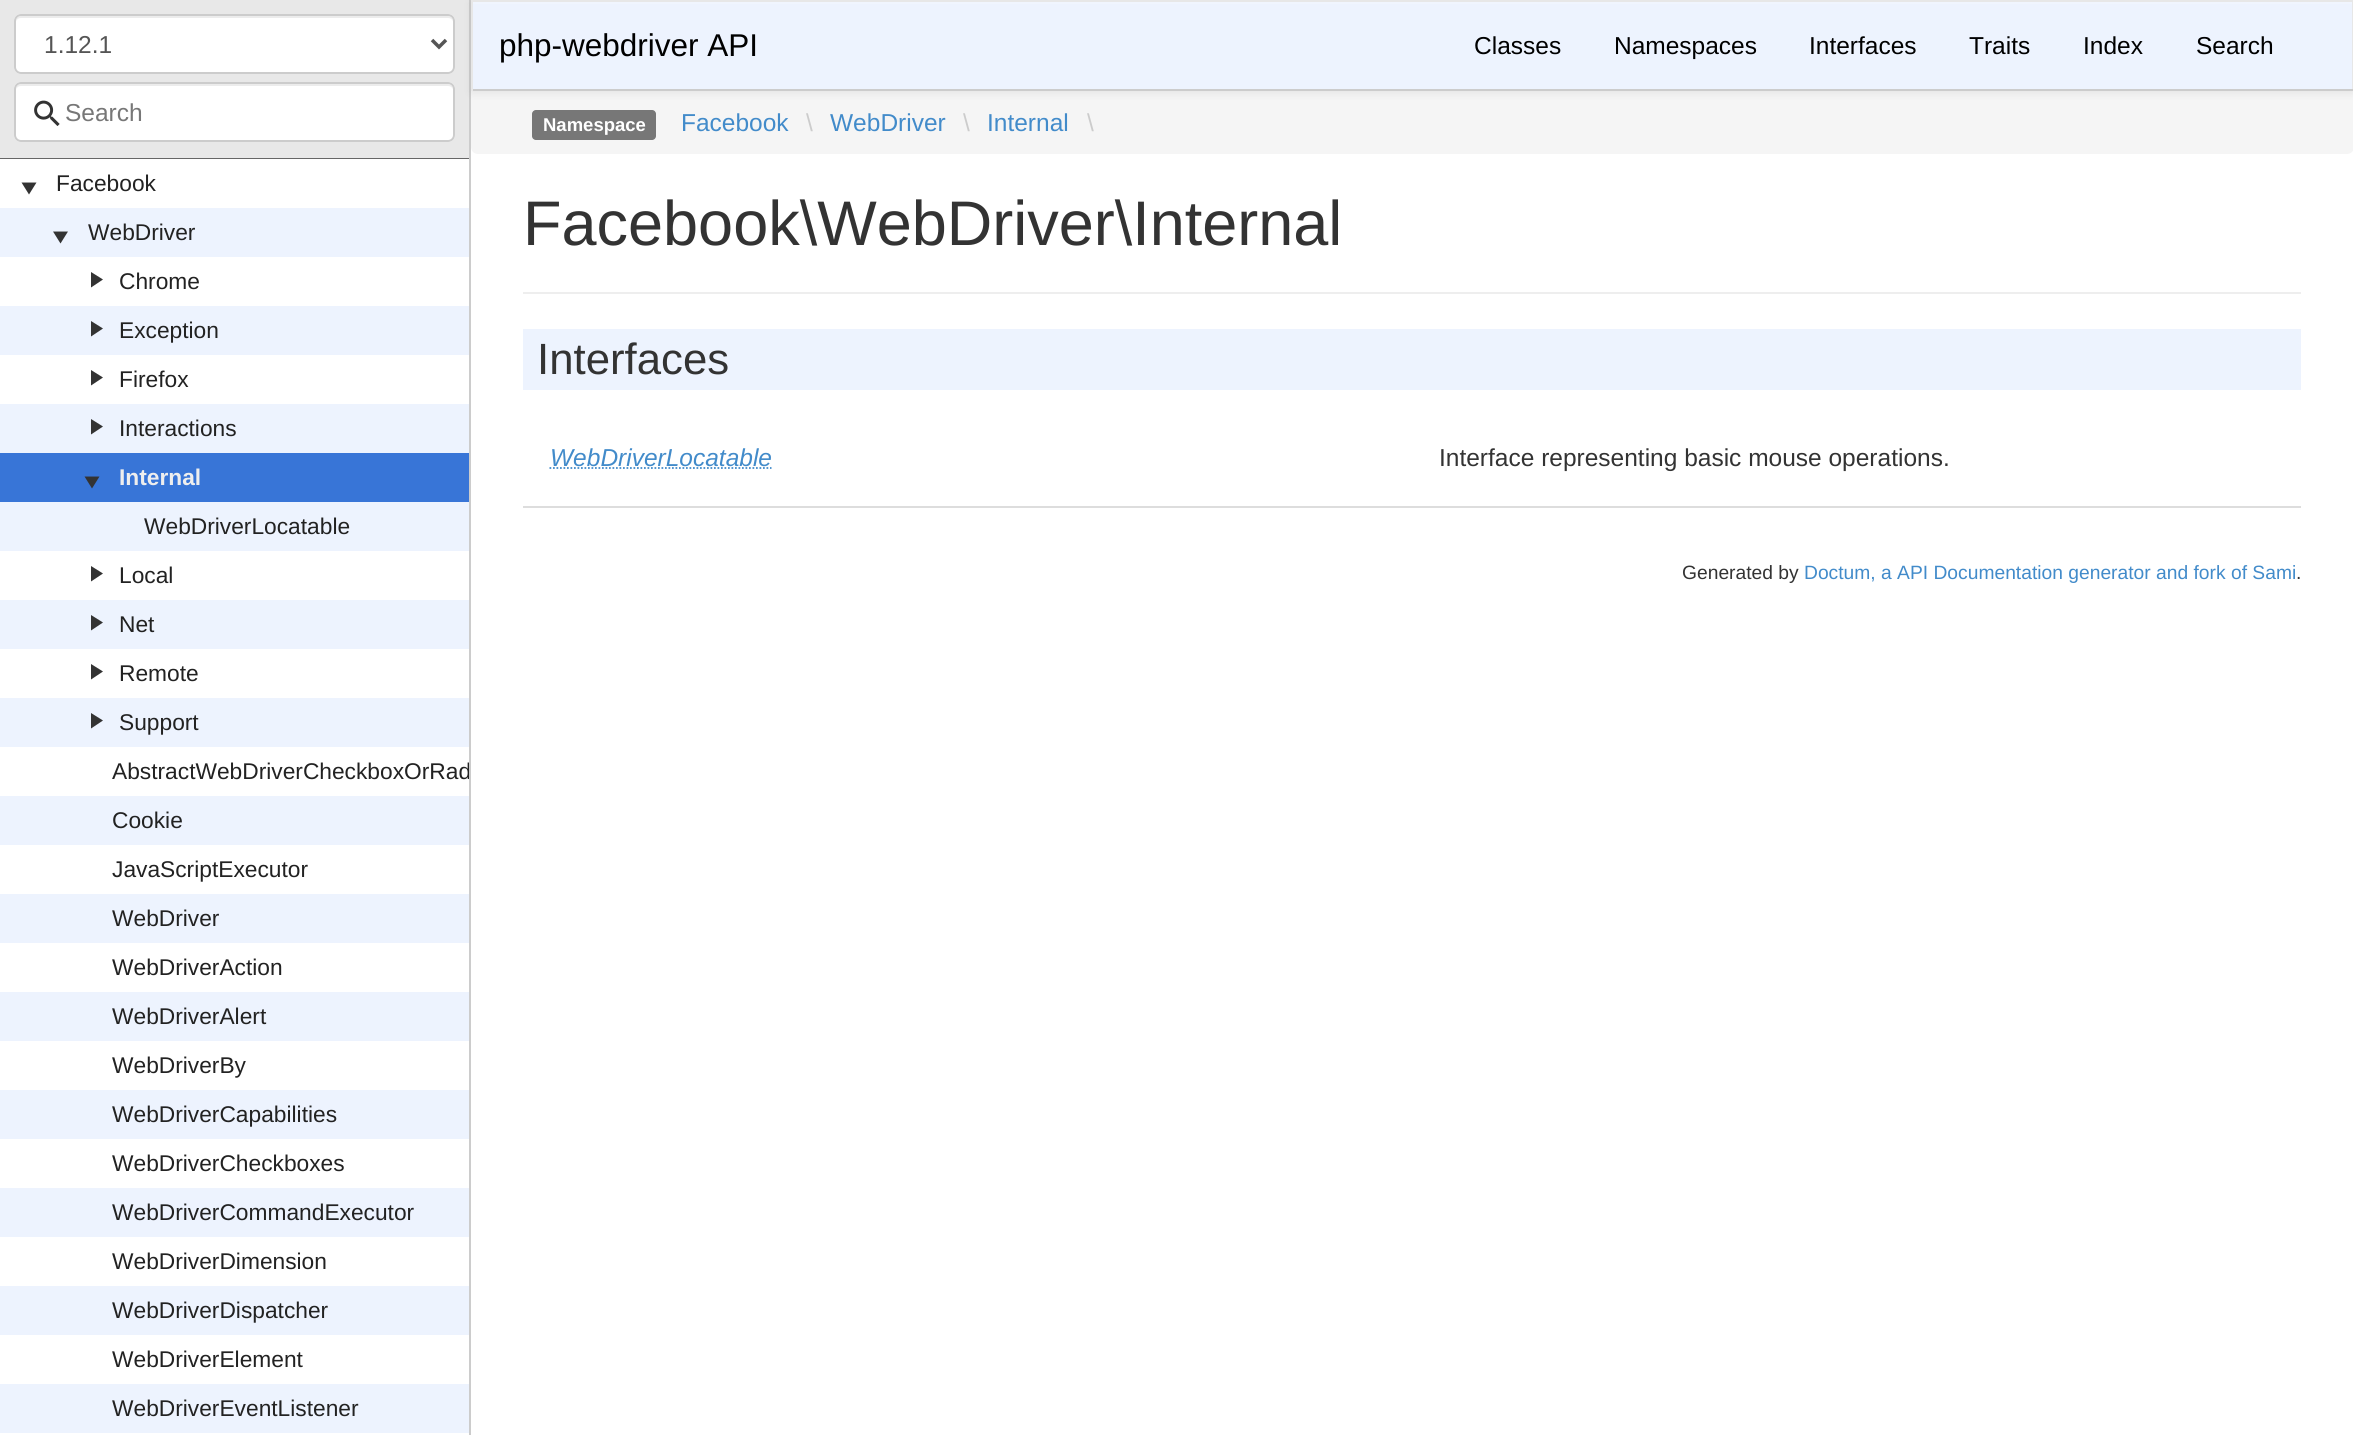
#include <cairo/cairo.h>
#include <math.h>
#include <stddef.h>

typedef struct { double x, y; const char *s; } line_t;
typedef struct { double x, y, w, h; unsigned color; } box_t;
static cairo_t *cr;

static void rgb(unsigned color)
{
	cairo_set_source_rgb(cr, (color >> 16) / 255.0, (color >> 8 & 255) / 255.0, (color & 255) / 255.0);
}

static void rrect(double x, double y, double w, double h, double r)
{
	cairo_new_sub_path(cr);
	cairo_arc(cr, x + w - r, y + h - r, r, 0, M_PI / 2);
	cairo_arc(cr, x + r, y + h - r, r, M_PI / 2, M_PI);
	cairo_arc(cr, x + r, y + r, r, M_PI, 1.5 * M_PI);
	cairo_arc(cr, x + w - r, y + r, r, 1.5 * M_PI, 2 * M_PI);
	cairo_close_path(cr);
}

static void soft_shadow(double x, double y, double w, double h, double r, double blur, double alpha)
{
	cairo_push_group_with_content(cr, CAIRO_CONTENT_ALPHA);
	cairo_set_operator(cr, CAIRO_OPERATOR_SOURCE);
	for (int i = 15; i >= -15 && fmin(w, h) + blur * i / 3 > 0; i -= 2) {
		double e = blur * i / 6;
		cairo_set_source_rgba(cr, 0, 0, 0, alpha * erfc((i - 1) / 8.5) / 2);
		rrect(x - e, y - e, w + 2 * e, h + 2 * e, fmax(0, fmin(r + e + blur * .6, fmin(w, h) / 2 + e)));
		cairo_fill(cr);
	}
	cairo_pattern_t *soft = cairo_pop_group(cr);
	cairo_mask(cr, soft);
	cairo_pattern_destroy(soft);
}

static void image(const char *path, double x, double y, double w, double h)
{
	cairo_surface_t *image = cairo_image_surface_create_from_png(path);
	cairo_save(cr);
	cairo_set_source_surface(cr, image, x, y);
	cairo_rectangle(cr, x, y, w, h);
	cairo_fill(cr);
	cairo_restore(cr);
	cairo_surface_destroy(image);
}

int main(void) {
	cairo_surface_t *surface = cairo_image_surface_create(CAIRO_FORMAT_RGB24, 2353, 1435);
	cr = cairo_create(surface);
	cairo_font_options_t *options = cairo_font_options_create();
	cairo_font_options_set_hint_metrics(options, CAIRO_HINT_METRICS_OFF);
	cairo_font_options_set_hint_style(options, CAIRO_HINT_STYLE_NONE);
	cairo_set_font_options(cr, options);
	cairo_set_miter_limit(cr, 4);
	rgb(0xffffff);
	cairo_paint(cr);
	{
		static const box_t items[] = {
			{469, 0, 2, 1435, 0xcccccc},
			{0, 0, 469, 158, 0xe8e8e8},
			{0, 158, 469, 1, 0x666666},
		};
		for (size_t i = 0; i < sizeof items / sizeof *items; i++) {
			rgb(items[i].color);
			cairo_rectangle(cr, items[i].x, items[i].y, items[i].w, items[i].h);
			cairo_fill(cr);
		}
	}
	rgb(0xffffff);
	rrect(14, 14, 441, 60, 7);
	cairo_fill(cr);
	rgb(0xececec);
	cairo_new_path(cr);
	cairo_move_to(cr, 21, 18);
	cairo_line_to(cr, 448, 18);
	cairo_curve_to(cr, 451, 18, 453, 20, 453, 23);
	cairo_curve_to(cr, 453, 20, 452, 16, 448, 16);
	cairo_line_to(cr, 21, 16);
	cairo_curve_to(cr, 17, 16, 16, 20, 16, 23);
	cairo_curve_to(cr, 16, 20, 18, 18, 21, 18);
	cairo_close_path(cr);
	cairo_fill(cr);
	rrect(15, 15, 439, 58, 6);
	rgb(0xcccccc);
	cairo_stroke(cr);
	cairo_new_path(cr);
	cairo_move_to(cr, 432, 40);
	cairo_line_to(cr, 439, 47);
	cairo_line_to(cr, 446, 40);
	rgb(0x555555);
	cairo_set_line_width(cr, 3.5);
	cairo_stroke(cr);
	rgb(0xffffff);
	rrect(14, 82, 441, 60, 7);
	cairo_fill(cr);
	rgb(0xececec);
	cairo_new_path(cr);
	cairo_move_to(cr, 21, 86);
	cairo_line_to(cr, 448, 86);
	cairo_curve_to(cr, 451, 86, 453, 88, 453, 91);
	cairo_curve_to(cr, 453, 88, 452, 84, 448, 84);
	cairo_line_to(cr, 21, 84);
	cairo_curve_to(cr, 17, 84, 16, 88, 16, 91);
	cairo_curve_to(cr, 16, 88, 18, 86, 21, 86);
	cairo_close_path(cr);
	cairo_fill(cr);
	rrect(15, 83, 439, 58, 6);
	rgb(0xcccccc);
	cairo_set_line_width(cr, 2);
	cairo_stroke(cr);
	image("img/1.png", 34, 100, 26, 26);
	image("img/2.png", 0, 159, 469, 1274);
	rgb(0x333333);
	cairo_new_path(cr);
	cairo_move_to(cr, 91, 272);
	cairo_line_to(cr, 91, 287.5);
	cairo_line_to(cr, 103, 279.5);
	cairo_close_path(cr);
	cairo_fill(cr);
	cairo_new_path(cr);
	cairo_move_to(cr, 91, 321);
	cairo_line_to(cr, 91, 336.5);
	cairo_line_to(cr, 103, 328.5);
	cairo_close_path(cr);
	cairo_fill(cr);
	cairo_new_path(cr);
	cairo_move_to(cr, 91, 370);
	cairo_line_to(cr, 91, 385.5);
	cairo_line_to(cr, 103, 377.5);
	cairo_close_path(cr);
	cairo_fill(cr);
	cairo_new_path(cr);
	cairo_move_to(cr, 91, 419);
	cairo_line_to(cr, 91, 434.5);
	cairo_line_to(cr, 103, 426.5);
	cairo_close_path(cr);
	cairo_fill(cr);
	rgb(0x3875d7);
	cairo_rectangle(cr, 0, 453, 469, 49);
	cairo_fill(cr);
	rgb(0x333333);
	cairo_new_path(cr);
	cairo_move_to(cr, 99.5, 476.5);
	cairo_line_to(cr, 84.5, 476.5);
	cairo_line_to(cr, 92, 488.5);
	cairo_close_path(cr);
	cairo_fill(cr);
	cairo_new_path(cr);
	cairo_move_to(cr, 91, 566);
	cairo_line_to(cr, 91, 581.5);
	cairo_line_to(cr, 103, 573.5);
	cairo_close_path(cr);
	cairo_fill(cr);
	cairo_new_path(cr);
	cairo_move_to(cr, 91, 615);
	cairo_line_to(cr, 91, 630.5);
	cairo_line_to(cr, 103, 622.5);
	cairo_close_path(cr);
	cairo_fill(cr);
	cairo_new_path(cr);
	cairo_move_to(cr, 91, 664);
	cairo_line_to(cr, 91, 679.5);
	cairo_line_to(cr, 103, 671.5);
	cairo_close_path(cr);
	cairo_fill(cr);
	cairo_new_path(cr);
	cairo_move_to(cr, 91, 713);
	cairo_line_to(cr, 91, 728.5);
	cairo_line_to(cr, 103, 720.5);
	cairo_close_path(cr);
	cairo_fill(cr);
	rgb(0xf5f5f5);
	cairo_new_path(cr);
	cairo_move_to(cr, 471, 91);
	cairo_line_to(cr, 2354, 91);
	cairo_line_to(cr, 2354, 147);
	cairo_curve_to(cr, 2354, 151, 2351, 154, 2347, 154);
	cairo_line_to(cr, 478, 154);
	cairo_curve_to(cr, 474, 154, 471, 151, 471, 147);
	cairo_close_path(cr);
	cairo_fill(cr);
	rgb(0x000000);
	soft_shadow(471, 2, 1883, 91, 0, 4.5, 0.07);
	{
		static const box_t items[] = {
			{473, 4, 1879, 85, 0xedf3fe},
			{473, 2, 1879, 2, 0xf0f5fe},
			{471, 0, 1882, 2, 0xe7e7e7},
			{2352, 0, 1, 91, 0xe7e7e7},
			{471, 89, 1882, 2, 0xcccccc},
			{471, 0, 2, 91, 0xe7e7e7},
		};
		for (size_t i = 0; i < sizeof items / sizeof *items; i++) {
			rgb(items[i].color);
			cairo_rectangle(cr, items[i].x, items[i].y, items[i].w, items[i].h);
			cairo_fill(cr);
		}
	}
	rgb(0x777777);
	rrect(532, 110, 124, 30, 4);
	cairo_fill(cr);
	{
		static const box_t items[] = {
			{523, 292, 1778, 2, 0xeeeeee},
			{523, 329, 1778, 61, 0xedf3fe},
			{523, 506, 1778, 2, 0xdddddd},
		};
		for (size_t i = 0; i < sizeof items / sizeof *items; i++) {
			rgb(items[i].color);
			cairo_rectangle(cr, items[i].x, items[i].y, items[i].w, items[i].h);
			cairo_fill(cr);
		}
	}
	cairo_new_path(cr);
	cairo_move_to(cr, 549.5, 468);
	cairo_line_to(cr, 771.5, 468);
	rgb(0x428bca);
	cairo_set_line_width(cr, 1.8);
	cairo_set_dash(cr, (double[]){1.75, 1.75}, 2, 0);
	cairo_stroke(cr);
	cairo_select_font_face(cr, "Liberation Sans", CAIRO_FONT_SLANT_NORMAL, CAIRO_FONT_WEIGHT_NORMAL);
	cairo_set_font_size(cr, 24.5);
	rgb(0x555555);
	cairo_move_to(cr, 44, 53);
	cairo_show_text(cr, "1.12.1");
	rgb(0x777777);
	cairo_move_to(cr, 65, 121);
	cairo_show_text(cr, "Search");
	cairo_set_font_size(cr, 22.75);
	rgb(0x222222);
	cairo_move_to(cr, 56, 191);
	cairo_show_text(cr, "Facebook");
	rgb(0x333333);
	cairo_new_path(cr);
	cairo_move_to(cr, 36.5, 182.5);
	cairo_line_to(cr, 21.5, 182.5);
	cairo_line_to(cr, 29, 194.5);
	cairo_close_path(cr);
	cairo_move_to(cr, 68, 231.5);
	cairo_line_to(cr, 53, 231.5);
	cairo_line_to(cr, 60.5, 243.5);
	cairo_close_path(cr);
	cairo_fill(cr);
	rgb(0x222222);
	{
		static const line_t items[] = {
			{88, 240, "WebDriver"},
			{119, 289, "Chrome"},
			{119, 338, "Exception"},
			{119, 387, "Firefox"},
			{119, 436, "Interactions"},
		};
		for (size_t i = 0; i < sizeof items / sizeof *items; i++) {
			cairo_move_to(cr, items[i].x, items[i].y);
			cairo_show_text(cr, items[i].s);
		}
	}
	cairo_select_font_face(cr, "Liberation Sans", CAIRO_FONT_SLANT_NORMAL, CAIRO_FONT_WEIGHT_BOLD);
	rgb(0xeeeeee);
	cairo_move_to(cr, 119, 485);
	cairo_show_text(cr, "Internal");
	cairo_select_font_face(cr, "Liberation Sans", CAIRO_FONT_SLANT_NORMAL, CAIRO_FONT_WEIGHT_NORMAL);
	rgb(0x222222);
	{
		static const line_t items[] = {
			{144, 534, "WebDriverLocatable"},
			{119, 583, "Local"},
			{119, 632, "Net"},
			{119, 681, "Remote"},
			{119, 730, "Support"},
		};
		for (size_t i = 0; i < sizeof items / sizeof *items; i++) {
			cairo_move_to(cr, items[i].x, items[i].y);
			cairo_show_text(cr, items[i].s);
		}
	}
	cairo_save(cr);
	cairo_rectangle(cr, 0, 159, 469, 1276);
	cairo_clip(cr);
	cairo_move_to(cr, 112, 779);
	cairo_show_text(cr, "AbstractWebDriverCheckboxOrRad");
	cairo_restore(cr);
	{
		static const line_t items[] = {
			{112, 828, "Cookie"},
			{112, 877, "JavaScriptExecutor"},
			{112, 926, "WebDriver"},
			{112, 975, "WebDriverAction"},
			{112, 1024, "WebDriverAlert"},
			{112, 1073, "WebDriverBy"},
			{112, 1122, "WebDriverCapabilities"},
			{112, 1171, "WebDriverCheckboxes"},
			{112, 1220, "WebDriverCommandExecutor"},
			{112, 1269, "WebDriverDimension"},
			{112, 1318, "WebDriverDispatcher"},
			{112, 1367, "WebDriverElement"},
			{112, 1416, "WebDriverEventListener"},
		};
		for (size_t i = 0; i < sizeof items / sizeof *items; i++) {
			cairo_move_to(cr, items[i].x, items[i].y);
			cairo_show_text(cr, items[i].s);
		}
	}
	cairo_set_font_size(cr, 31.5);
	rgb(0x000000);
	cairo_move_to(cr, 499, 56);
	cairo_show_text(cr, "php-webdriver API");
	cairo_set_font_size(cr, 24.5);
	{
		static const line_t items[] = {
			{1474, 54, "Classes"},
			{1614, 54, "Namespaces"},
			{1809, 54, "Interfaces"},
			{1969, 54, "Traits"},
			{2083, 54, "Index"},
			{2196, 54, "Search"},
		};
		for (size_t i = 0; i < sizeof items / sizeof *items; i++) {
			cairo_move_to(cr, items[i].x, items[i].y);
			cairo_show_text(cr, items[i].s);
		}
	}
	cairo_select_font_face(cr, "Liberation Sans", CAIRO_FONT_SLANT_NORMAL, CAIRO_FONT_WEIGHT_BOLD);
	cairo_set_font_size(cr, 18.5);
	rgb(0xffffff);
	cairo_move_to(cr, 543, 131);
	cairo_show_text(cr, "Namespace");
	cairo_select_font_face(cr, "Liberation Sans", CAIRO_FONT_SLANT_NORMAL, CAIRO_FONT_WEIGHT_NORMAL);
	cairo_set_font_size(cr, 24.5);
	rgb(0x428bca);
	cairo_move_to(cr, 681, 131);
	cairo_show_text(cr, "Facebook");
	rgb(0xcccccc);
	cairo_move_to(cr, 806, 131);
	cairo_show_text(cr, "\\");
	rgb(0x428bca);
	cairo_move_to(cr, 830, 131);
	cairo_show_text(cr, "WebDriver");
	rgb(0xcccccc);
	cairo_move_to(cr, 963, 131);
	cairo_show_text(cr, "\\");
	rgb(0x428bca);
	cairo_move_to(cr, 987, 131);
	cairo_show_text(cr, "Internal");
	rgb(0xcccccc);
	cairo_move_to(cr, 1087, 131);
	cairo_show_text(cr, "\\");
	cairo_set_font_size(cr, 63);
	rgb(0x333333);
	cairo_move_to(cr, 523, 245);
	cairo_show_text(cr, "Facebook\\WebDriver\\Internal");
	cairo_set_font_size(cr, 43.75);
	cairo_move_to(cr, 537, 374);
	cairo_show_text(cr, "Interfaces");
	cairo_select_font_face(cr, "Liberation Sans", CAIRO_FONT_SLANT_ITALIC, CAIRO_FONT_WEIGHT_NORMAL);
	cairo_set_font_size(cr, 24.5);
	rgb(0x428bca);
	cairo_move_to(cr, 550, 466);
	cairo_show_text(cr, "WebDriverLocatable");
	cairo_select_font_face(cr, "Liberation Sans", CAIRO_FONT_SLANT_NORMAL, CAIRO_FONT_WEIGHT_NORMAL);
	rgb(0x333333);
	cairo_move_to(cr, 1439, 466);
	cairo_show_text(cr, "Interface representing basic mouse operations.");
	cairo_set_font_size(cr, 19.25);
	cairo_move_to(cr, 1682, 579);
	cairo_show_text(cr, "Generated by");
	rgb(0x428bca);
	cairo_move_to(cr, 1804, 579);
	cairo_show_text(cr, "Doctum, a API Documentation generator and fork of Sami");
	rgb(0x333333);
	cairo_move_to(cr, 2296, 579);
	cairo_show_text(cr, ".");
	cairo_surface_write_to_png(surface, "page.png");
	cairo_font_options_destroy(options);
	cairo_destroy(cr);
	cairo_surface_destroy(surface);
	return 0;
}
